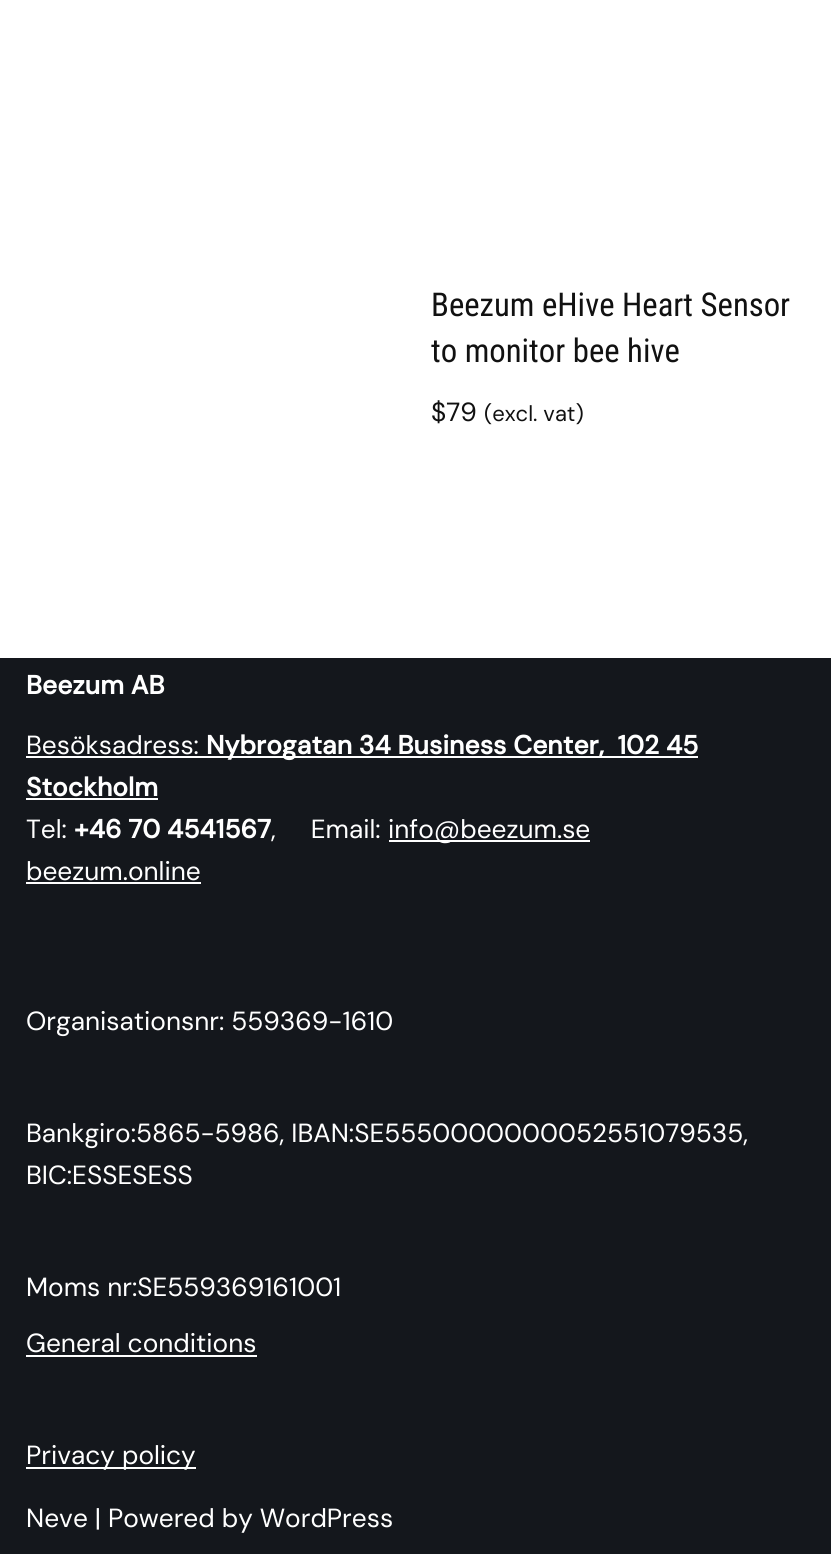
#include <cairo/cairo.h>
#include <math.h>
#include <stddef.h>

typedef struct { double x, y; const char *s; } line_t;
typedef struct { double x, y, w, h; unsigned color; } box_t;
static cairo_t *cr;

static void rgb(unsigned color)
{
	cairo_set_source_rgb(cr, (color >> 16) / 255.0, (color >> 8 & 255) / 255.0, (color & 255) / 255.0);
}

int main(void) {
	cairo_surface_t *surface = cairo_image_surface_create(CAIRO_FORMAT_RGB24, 831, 1554);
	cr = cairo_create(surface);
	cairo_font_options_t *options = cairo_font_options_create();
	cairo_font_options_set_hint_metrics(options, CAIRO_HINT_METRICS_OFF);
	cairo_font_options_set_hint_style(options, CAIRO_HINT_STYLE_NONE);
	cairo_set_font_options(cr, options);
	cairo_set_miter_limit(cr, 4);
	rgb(0xffffff);
	cairo_paint(cr);
	{
		static const box_t items[] = {
			{0, 658, 831, 896, 0x14171c},
			{26, 756, 672, 2, 0xffffff},
			{26, 798, 132, 2, 0xffffff},
			{389, 840, 201, 2, 0xffffff},
			{26, 882, 175, 2, 0xffffff},
			{26, 1355, 231, 2, 0xffffff},
			{26, 1467, 170, 2, 0xffffff},
		};
		for (size_t i = 0; i < sizeof items / sizeof *items; i++) {
			rgb(items[i].color);
			cairo_rectangle(cr, items[i].x, items[i].y, items[i].w, items[i].h);
			cairo_fill(cr);
		}
	}
	cairo_select_font_face(cr, "Roboto Condensed", CAIRO_FONT_SLANT_NORMAL, CAIRO_FONT_WEIGHT_NORMAL);
	cairo_set_font_size(cr, 32.75);
	rgb(0x111111);
	cairo_move_to(cr, 431, 316);
	cairo_show_text(cr, "Beezum eHive Heart Sensor");
	cairo_move_to(cr, 431, 362);
	cairo_show_text(cr, "to monitor bee hive");
	cairo_select_font_face(cr, "DM Sans", CAIRO_FONT_SLANT_NORMAL, CAIRO_FONT_WEIGHT_NORMAL);
	cairo_set_font_size(cr, 26.25);
	cairo_move_to(cr, 431, 421);
	cairo_show_text(cr, "$79");
	cairo_set_font_size(cr, 22);
	cairo_move_to(cr, 484, 421);
	cairo_show_text(cr, "(excl. vat)");
	cairo_select_font_face(cr, "DM Sans", CAIRO_FONT_SLANT_NORMAL, CAIRO_FONT_WEIGHT_BOLD);
	cairo_set_font_size(cr, 26.25);
	rgb(0xffffff);
	cairo_move_to(cr, 26, 694);
	cairo_show_text(cr, "Beezum AB");
	cairo_select_font_face(cr, "DM Sans", CAIRO_FONT_SLANT_NORMAL, CAIRO_FONT_WEIGHT_NORMAL);
	cairo_move_to(cr, 26, 754);
	cairo_show_text(cr, "Besöksadress:");
	cairo_select_font_face(cr, "DM Sans", CAIRO_FONT_SLANT_NORMAL, CAIRO_FONT_WEIGHT_BOLD);
	cairo_move_to(cr, 206, 754);
	cairo_show_text(cr, "Nybrogatan 34 Business Center,  102 45");
	cairo_move_to(cr, 26, 796);
	cairo_show_text(cr, "Stockholm");
	cairo_select_font_face(cr, "DM Sans", CAIRO_FONT_SLANT_NORMAL, CAIRO_FONT_WEIGHT_NORMAL);
	cairo_move_to(cr, 26, 838);
	cairo_show_text(cr, "Tel:");
	cairo_select_font_face(cr, "DM Sans", CAIRO_FONT_SLANT_NORMAL, CAIRO_FONT_WEIGHT_BOLD);
	cairo_move_to(cr, 74, 838);
	cairo_show_text(cr, "+46 70 4541567");
	cairo_select_font_face(cr, "DM Sans", CAIRO_FONT_SLANT_NORMAL, CAIRO_FONT_WEIGHT_NORMAL);
	{
		static const line_t items[] = {
			{271, 838, ",     Email:"},
			{388, 838, "info@beezum.se"},
			{26, 880, "beezum.online"},
			{26, 1030, "Organisationsnr: 559369-1610"},
			{26, 1142, "Bankgiro:5865-5986, IBAN:SE5550000000052551079535,"},
			{26, 1184, "BIC:ESSESESS"},
			{26, 1296, "Moms nr:SE559369161001"},
			{26, 1352, "General conditions"},
			{26, 1464, "Privacy policy"},
			{26, 1527, "Neve | Powered by WordPress"},
		};
		for (size_t i = 0; i < sizeof items / sizeof *items; i++) {
			cairo_move_to(cr, items[i].x, items[i].y);
			cairo_show_text(cr, items[i].s);
		}
	}
	cairo_surface_write_to_png(surface, "page.png");
	cairo_font_options_destroy(options);
	cairo_destroy(cr);
	cairo_surface_destroy(surface);
	return 0;
}
